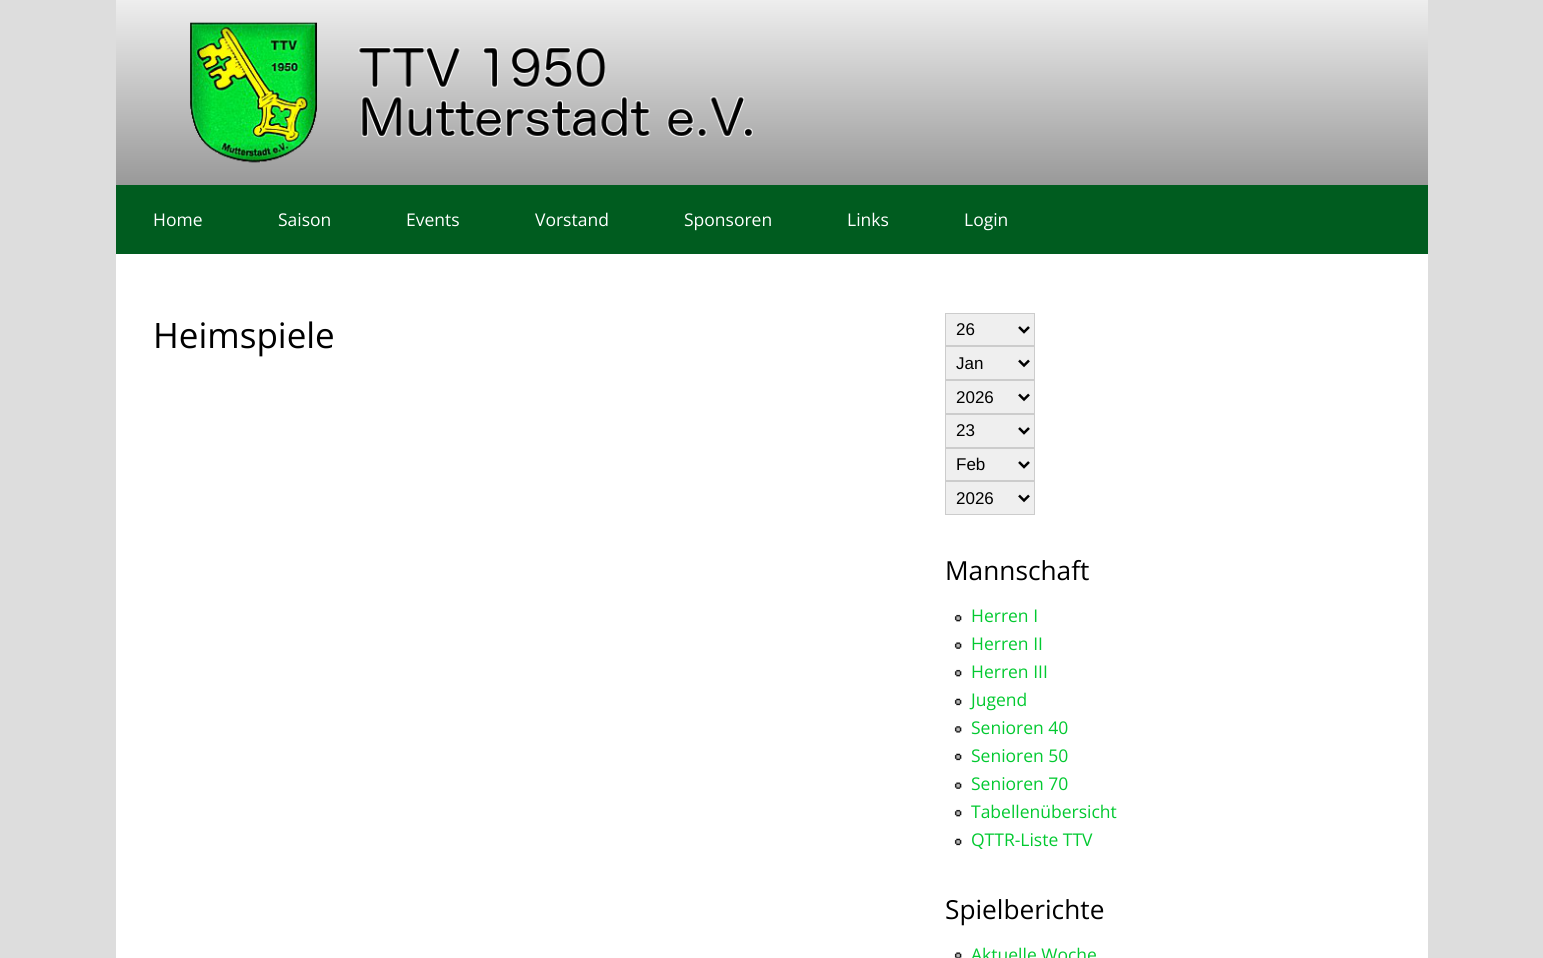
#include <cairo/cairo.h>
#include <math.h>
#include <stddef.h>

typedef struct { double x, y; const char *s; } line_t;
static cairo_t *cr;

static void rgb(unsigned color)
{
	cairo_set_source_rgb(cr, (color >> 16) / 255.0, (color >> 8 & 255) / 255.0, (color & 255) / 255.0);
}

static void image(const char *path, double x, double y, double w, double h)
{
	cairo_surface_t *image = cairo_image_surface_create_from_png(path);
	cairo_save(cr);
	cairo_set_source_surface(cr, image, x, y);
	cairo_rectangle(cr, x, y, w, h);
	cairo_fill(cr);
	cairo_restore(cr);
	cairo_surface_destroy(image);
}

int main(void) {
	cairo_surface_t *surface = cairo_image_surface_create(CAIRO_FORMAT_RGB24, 1543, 958);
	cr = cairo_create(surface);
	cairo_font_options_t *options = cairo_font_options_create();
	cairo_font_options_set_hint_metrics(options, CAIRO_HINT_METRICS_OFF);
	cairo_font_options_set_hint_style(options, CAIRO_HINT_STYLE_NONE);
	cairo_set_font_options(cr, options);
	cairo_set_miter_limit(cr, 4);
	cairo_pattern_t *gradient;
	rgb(0xdddddd);
	cairo_paint(cr);
	rgb(0xffffff);
	cairo_rectangle(cr, 116, 254, 1312, 704);
	cairo_fill(cr);
	gradient = cairo_pattern_create_linear(772, 0, 772, 185);
	cairo_pattern_add_color_stop_rgba(gradient, 0, 0.933, 0.933, 0.933, 1);
	cairo_pattern_add_color_stop_rgba(gradient, 1, 0.6, 0.6, 0.6, 1);
	cairo_set_source(cr, gradient);
	cairo_pattern_destroy(gradient);
	cairo_rectangle(cr, 116, 0, 1312, 185);
	cairo_fill(cr);
	image("img/1.png", 190, 22, 563, 141);
	rgb(0x005c1f);
	cairo_rectangle(cr, 116, 185, 1312, 69);
	cairo_fill(cr);
	rgb(0xefefef);
	cairo_rectangle(cr, 945.5, 313.5, 89, 32);
	cairo_fill_preserve(cr);
	rgb(0xcccccc);
	cairo_set_line_width(cr, 1);
	cairo_stroke(cr);
	cairo_new_path(cr);
	cairo_move_to(cr, 1019, 327);
	cairo_line_to(cr, 1024, 332);
	cairo_line_to(cr, 1029, 327);
	rgb(0x000000);
	cairo_set_line_width(cr, 2.5);
	cairo_stroke(cr);
	rgb(0xefefef);
	cairo_rectangle(cr, 945.5, 346.5, 89, 33);
	cairo_fill_preserve(cr);
	rgb(0xcccccc);
	cairo_set_line_width(cr, 1);
	cairo_stroke(cr);
	cairo_new_path(cr);
	cairo_move_to(cr, 1019, 360.5);
	cairo_line_to(cr, 1024, 365.5);
	cairo_line_to(cr, 1029, 360.5);
	rgb(0x000000);
	cairo_set_line_width(cr, 2.5);
	cairo_stroke(cr);
	rgb(0xefefef);
	cairo_rectangle(cr, 945.5, 380.5, 89, 33);
	cairo_fill_preserve(cr);
	rgb(0xcccccc);
	cairo_set_line_width(cr, 1);
	cairo_stroke(cr);
	cairo_new_path(cr);
	cairo_move_to(cr, 1019, 394.5);
	cairo_line_to(cr, 1024, 399.5);
	cairo_line_to(cr, 1029, 394.5);
	rgb(0x000000);
	cairo_set_line_width(cr, 2.5);
	cairo_stroke(cr);
	rgb(0xefefef);
	cairo_rectangle(cr, 945.5, 414.5, 89, 33);
	cairo_fill_preserve(cr);
	rgb(0xcccccc);
	cairo_set_line_width(cr, 1);
	cairo_stroke(cr);
	cairo_new_path(cr);
	cairo_move_to(cr, 1019, 428);
	cairo_line_to(cr, 1024, 433);
	cairo_line_to(cr, 1029, 428);
	rgb(0x000000);
	cairo_set_line_width(cr, 2.5);
	cairo_stroke(cr);
	rgb(0xefefef);
	cairo_rectangle(cr, 945.5, 448.5, 89, 32);
	cairo_fill_preserve(cr);
	rgb(0xcccccc);
	cairo_set_line_width(cr, 1);
	cairo_stroke(cr);
	cairo_new_path(cr);
	cairo_move_to(cr, 1019, 462);
	cairo_line_to(cr, 1024, 467);
	cairo_line_to(cr, 1029, 462);
	rgb(0x000000);
	cairo_set_line_width(cr, 2.5);
	cairo_stroke(cr);
	rgb(0xefefef);
	cairo_rectangle(cr, 945.5, 481.5, 89, 33);
	cairo_fill_preserve(cr);
	rgb(0xcccccc);
	cairo_set_line_width(cr, 1);
	cairo_stroke(cr);
	cairo_new_path(cr);
	cairo_move_to(cr, 1019, 495.5);
	cairo_line_to(cr, 1024, 500.5);
	cairo_line_to(cr, 1029, 495.5);
	rgb(0x000000);
	cairo_set_line_width(cr, 2.5);
	cairo_stroke(cr);
	image("img/2.png", 954, 614, 8, 8);
	image("img/3.png", 954, 642, 8, 7);
	image("img/2.png", 954, 669, 8, 8);
	image("img/4.png", 954, 698, 8, 8);
	image("img/5.png", 954, 726, 8, 7);
	image("img/4.png", 954, 753, 8, 8);
	image("img/6.png", 954, 782, 8, 7);
	image("img/2.png", 954, 809, 8, 8);
	image("img/4.png", 954, 838, 8, 8);
	image("img/7.png", 954, 952, 8, 6);
	cairo_select_font_face(cr, "Open Sans", CAIRO_FONT_SLANT_NORMAL, CAIRO_FONT_WEIGHT_NORMAL);
	cairo_set_font_size(cr, 17.5);
	rgb(0xffffff);
	{
		static const line_t items[] = {
			{153, 226, "Home"},
			{278, 226, "Saison"},
			{406, 226, "Events"},
			{535, 226, "Vorstand"},
			{684, 226, "Sponsoren"},
			{847, 226, "Links"},
			{964, 226, "Login"},
		};
		for (size_t i = 0; i < sizeof items / sizeof *items; i++) {
			cairo_move_to(cr, items[i].x, items[i].y);
			cairo_show_text(cr, items[i].s);
		}
	}
	cairo_set_font_size(cr, 35);
	rgb(0x000000);
	cairo_move_to(cr, 153, 348);
	cairo_show_text(cr, "Heimspiele");
	cairo_select_font_face(cr, "Liberation Sans", CAIRO_FONT_SLANT_NORMAL, CAIRO_FONT_WEIGHT_NORMAL);
	cairo_set_font_size(cr, 17);
	{
		static const line_t items[] = {
			{956, 335, "26"},
			{956, 369, "Jan"},
			{956, 403, "2026"},
			{956, 436, "23"},
			{956, 470, "Feb"},
			{956, 504, "2026"},
		};
		for (size_t i = 0; i < sizeof items / sizeof *items; i++) {
			cairo_move_to(cr, items[i].x, items[i].y);
			cairo_show_text(cr, items[i].s);
		}
	}
	cairo_select_font_face(cr, "Open Sans", CAIRO_FONT_SLANT_NORMAL, CAIRO_FONT_WEIGHT_NORMAL);
	cairo_set_font_size(cr, 26.25);
	cairo_move_to(cr, 945, 580);
	cairo_show_text(cr, "Mannschaft");
	cairo_set_font_size(cr, 17.5);
	rgb(0x02c930);
	{
		static const line_t items[] = {
			{971, 622, "Herren I"},
			{971, 650, "Herren II"},
			{971, 678, "Herren III"},
			{971, 706, "Jugend"},
			{971, 734, "Senioren 40"},
			{971, 762, "Senioren 50"},
			{971, 790, "Senioren 70"},
			{971, 818, "Tabellenübersicht"},
			{971, 846, "QTTR-Liste TTV"},
		};
		for (size_t i = 0; i < sizeof items / sizeof *items; i++) {
			cairo_move_to(cr, items[i].x, items[i].y);
			cairo_show_text(cr, items[i].s);
		}
	}
	cairo_set_font_size(cr, 26.25);
	rgb(0x000000);
	cairo_move_to(cr, 945, 919);
	cairo_show_text(cr, "Spielberichte");
	cairo_set_font_size(cr, 17.5);
	rgb(0x02c930);
	cairo_move_to(cr, 971, 961);
	cairo_show_text(cr, "Aktuelle Woche");
	cairo_surface_write_to_png(surface, "page.png");
	cairo_font_options_destroy(options);
	cairo_destroy(cr);
	cairo_surface_destroy(surface);
	return 0;
}
